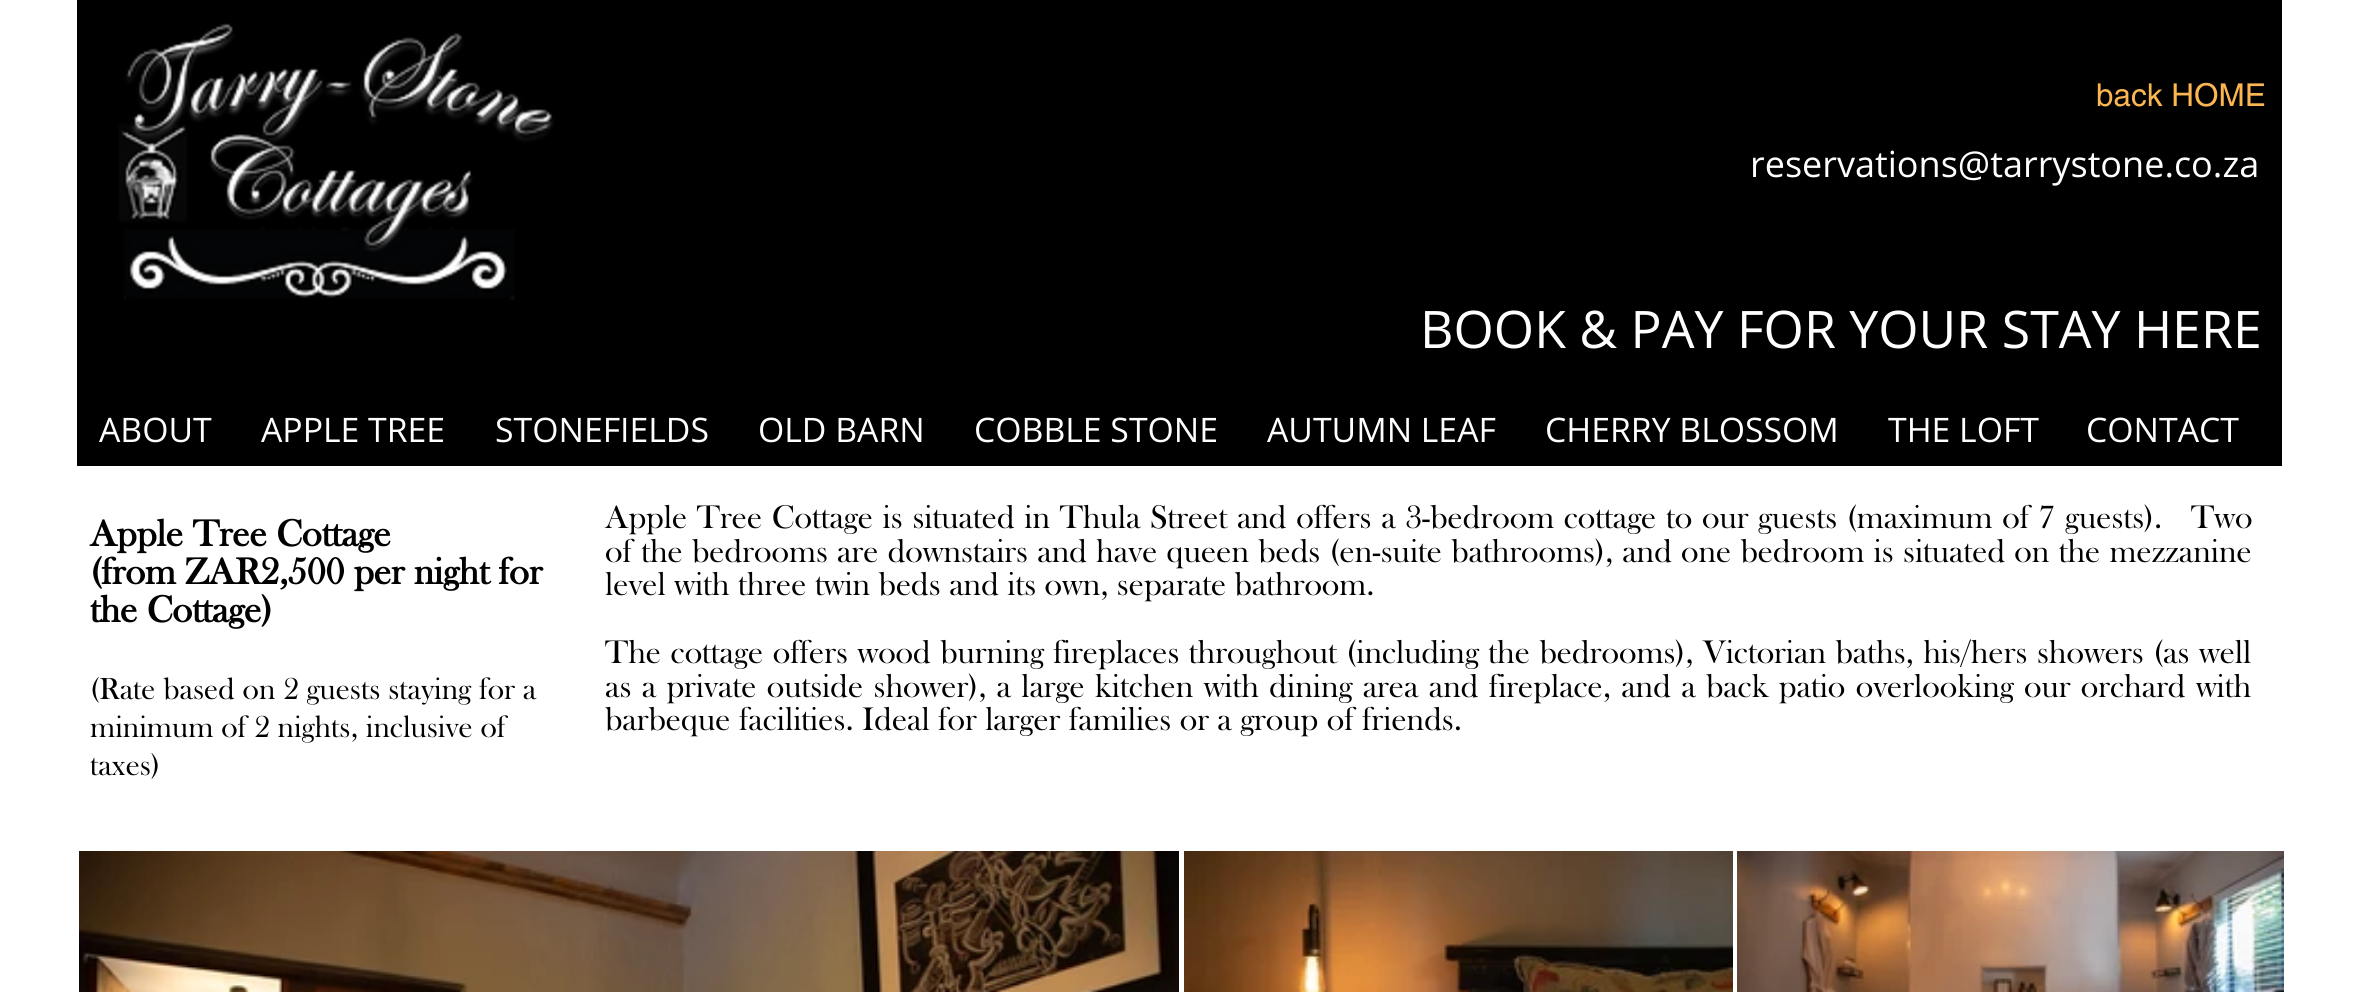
#include <cairo/cairo.h>
#include <math.h>
#include <stddef.h>

typedef struct { double x, y; const char *s; } line_t;
static cairo_t *cr;

static void rgb(unsigned color)
{
	cairo_set_source_rgb(cr, (color >> 16) / 255.0, (color >> 8 & 255) / 255.0, (color & 255) / 255.0);
}

static void tracked(double x, double y, const char *s, double letter, double word)
{
	cairo_move_to(cr, x, y);
	while (*s) {
		char ch[5] = {0};
		int n = 0;
		do ch[n++] = *s++; while ((*s & 0xC0) == 0x80);
		cairo_show_text(cr, ch);
		cairo_rel_move_to(cr, letter + word * (*ch == ' '), 0);
	}
}

static void image(const char *path, double x, double y, double w, double h)
{
	cairo_surface_t *image = cairo_image_surface_create_from_png(path);
	cairo_save(cr);
	cairo_set_source_surface(cr, image, x, y);
	cairo_rectangle(cr, x, y, w, h);
	cairo_fill(cr);
	cairo_restore(cr);
	cairo_surface_destroy(image);
}

int main(void) {
	cairo_surface_t *surface = cairo_image_surface_create(CAIRO_FORMAT_RGB24, 2358, 992);
	cr = cairo_create(surface);
	cairo_font_options_t *options = cairo_font_options_create();
	cairo_font_options_set_hint_metrics(options, CAIRO_HINT_METRICS_OFF);
	cairo_font_options_set_hint_style(options, CAIRO_HINT_STYLE_NONE);
	cairo_set_font_options(cr, options);
	cairo_set_miter_limit(cr, 4);
	rgb(0xffffff);
	cairo_paint(cr);
	rgb(0x000000);
	cairo_rectangle(cr, 77, 0, 2205, 466);
	cairo_fill(cr);
	image("img/1.png", 118, 23, 436, 277);
	image("img/2.png", 79, 851, 1100, 141);
	image("img/3.png", 1184, 851, 549, 141);
	image("img/4.png", 1737, 851, 547, 141);
	cairo_select_font_face(cr, "helvetica", CAIRO_FONT_SLANT_NORMAL, CAIRO_FONT_WEIGHT_NORMAL);
	cairo_set_font_size(cr, 31.5);
	rgb(0xfbb651);
	cairo_move_to(cr, 2096, 106);
	cairo_show_text(cr, "back HOME");
	cairo_select_font_face(cr, "Open Sans", CAIRO_FONT_SLANT_NORMAL, CAIRO_FONT_WEIGHT_NORMAL);
	cairo_set_font_size(cr, 36);
	rgb(0xffffff);
	cairo_move_to(cr, 1750, 177);
	cairo_show_text(cr, "reservations@tarrystone.co.za");
	cairo_set_font_size(cr, 51.75);
	cairo_move_to(cr, 1420, 348);
	cairo_show_text(cr, "BOOK & PAY FOR YOUR STAY HERE");
	cairo_set_font_size(cr, 33.75);
	{
		static const line_t items[] = {
			{99, 442, "ABOUT"},
			{261, 442, "APPLE TREE"},
			{495, 442, "STONEFIELDS"},
			{758, 442, "OLD BARN"},
			{974, 442, "COBBLE STONE"},
			{1267, 442, "AUTUMN LEAF"},
			{1545, 442, "CHERRY BLOSSOM"},
			{1888, 442, "THE LOFT"},
			{2086, 442, "CONTACT"},
		};
		for (size_t i = 0; i < sizeof items / sizeof *items; i++) {
			cairo_move_to(cr, items[i].x, items[i].y);
			cairo_show_text(cr, items[i].s);
		}
	}
	cairo_select_font_face(cr, "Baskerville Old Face", CAIRO_FONT_SLANT_NORMAL, CAIRO_FONT_WEIGHT_BOLD);
	cairo_set_font_size(cr, 38.25);
	rgb(0x000000);
	{
		static const line_t items[] = {
			{90, 546, "Apple Tree Cottage"},
			{90, 584, "(from ZAR2,500 per night for"},
			{90, 622, "the Cottage)"},
		};
		for (size_t i = 0; i < sizeof items / sizeof *items; i++) {
			cairo_move_to(cr, items[i].x, items[i].y);
			cairo_show_text(cr, items[i].s);
		}
	}
	cairo_select_font_face(cr, "Baskerville Old Face", CAIRO_FONT_SLANT_NORMAL, CAIRO_FONT_WEIGHT_NORMAL);
	cairo_set_font_size(cr, 31.5);
	{
		static const line_t items[] = {
			{90, 699, "(Rate based on 2 guests staying for a"},
			{90, 737, "minimum of 2 nights, inclusive of"},
			{90, 775, "taxes)"},
		};
		for (size_t i = 0; i < sizeof items / sizeof *items; i++) {
			cairo_move_to(cr, items[i].x, items[i].y);
			cairo_show_text(cr, items[i].s);
		}
	}
	cairo_set_font_size(cr, 33.75);
	tracked(605, 528, "Apple Tree Cottage is situated in Thula Street and offers a 3-bedroom cottage to our guests (maximum of 7 guests).", 0, 1.25);
	tracked(2191, 528, "Two", 0, 1.25);
	tracked(605, 562, "of the bedrooms are downstairs and have queen beds (en-suite bathrooms), and one bedroom is situated on the mezzanine", 0, 0.8);
	cairo_move_to(cr, 605, 595);
	cairo_show_text(cr, "level with three twin beds and its own, separate bathroom.");
	tracked(605, 663, "The cottage offers wood burning fireplaces throughout (including the bedrooms), Victorian baths, his/hers showers (as well", 0, 1.1);
	tracked(605, 697, "as a private outside shower), a large kitchen with dining area and fireplace, and a back patio overlooking our orchard with", 0, 1.9);
	cairo_move_to(cr, 605, 730);
	cairo_show_text(cr, "barbeque facilities. Ideal for larger families or a group of friends.");
	cairo_surface_write_to_png(surface, "page.png");
	cairo_font_options_destroy(options);
	cairo_destroy(cr);
	cairo_surface_destroy(surface);
	return 0;
}
